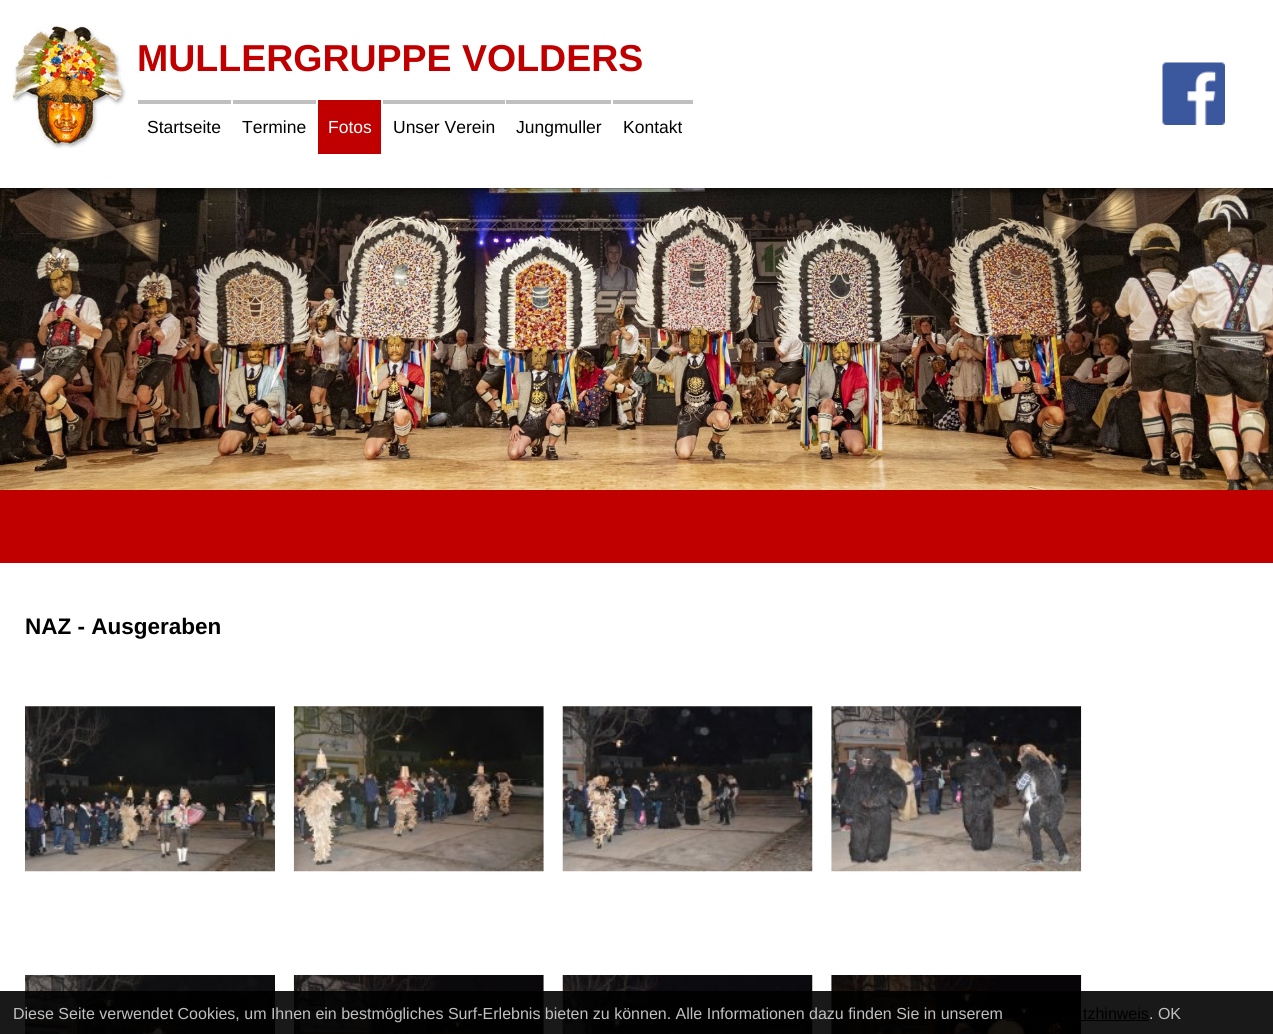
#include <cairo/cairo.h>
#include <math.h>
#include <stddef.h>

typedef struct { double x, y; const char *s; } line_t;
typedef struct { double x, y, w, h; unsigned color; } box_t;
static cairo_t *cr;

static void rgb(unsigned color)
{
	cairo_set_source_rgb(cr, (color >> 16) / 255.0, (color >> 8 & 255) / 255.0, (color & 255) / 255.0);
}

static void rrect(double x, double y, double w, double h, double r)
{
	cairo_new_sub_path(cr);
	cairo_arc(cr, x + w - r, y + h - r, r, 0, M_PI / 2);
	cairo_arc(cr, x + r, y + h - r, r, M_PI / 2, M_PI);
	cairo_arc(cr, x + r, y + r, r, M_PI, 1.5 * M_PI);
	cairo_arc(cr, x + w - r, y + r, r, 1.5 * M_PI, 2 * M_PI);
	cairo_close_path(cr);
}

static void soft_shadow(double x, double y, double w, double h, double r, double blur, double alpha)
{
	cairo_push_group_with_content(cr, CAIRO_CONTENT_ALPHA);
	cairo_set_operator(cr, CAIRO_OPERATOR_SOURCE);
	for (int i = 15; i >= -15 && fmin(w, h) + blur * i / 3 > 0; i -= 2) {
		double e = blur * i / 6;
		cairo_set_source_rgba(cr, 0, 0, 0, alpha * erfc((i - 1) / 8.5) / 2);
		rrect(x - e, y - e, w + 2 * e, h + 2 * e, fmax(0, fmin(r + e + blur * .6, fmin(w, h) / 2 + e)));
		cairo_fill(cr);
	}
	cairo_pattern_t *soft = cairo_pop_group(cr);
	cairo_mask(cr, soft);
	cairo_pattern_destroy(soft);
}

static void image(const char *path, double x, double y, double w, double h)
{
	cairo_surface_t *image = cairo_image_surface_create_from_png(path);
	cairo_save(cr);
	cairo_set_source_surface(cr, image, x, y);
	cairo_rectangle(cr, x, y, w, h);
	cairo_fill(cr);
	cairo_restore(cr);
	cairo_surface_destroy(image);
}

int main(void) {
	cairo_surface_t *surface = cairo_image_surface_create(CAIRO_FORMAT_RGB24, 1273, 1034);
	cr = cairo_create(surface);
	cairo_font_options_t *options = cairo_font_options_create();
	cairo_font_options_set_hint_metrics(options, CAIRO_HINT_METRICS_OFF);
	cairo_font_options_set_hint_style(options, CAIRO_HINT_STYLE_NONE);
	cairo_set_font_options(cr, options);
	cairo_set_miter_limit(cr, 4);
	rgb(0xc00000);
	cairo_paint(cr);
	image("img/1.png", 0, 188, 1273, 302);
	rgb(0x000000);
	soft_shadow(0, 0, 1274, 188, 0, 6, 1);
	rgb(0xffffff);
	cairo_rectangle(cr, 0, 0, 1273, 188);
	cairo_fill(cr);
	image("img/2.png", 12, 25, 114, 124);
	image("img/3.png", 1162, 62, 63, 63);
	{
		static const box_t items[] = {
			{138, 100, 93, 4, 0xc0c0c0},
			{233, 100, 83, 4, 0xc0c0c0},
			{318, 100, 63, 54, 0xc00000},
			{383, 100, 122, 4, 0xc0c0c0},
			{506, 100, 105, 4, 0xc0c0c0},
			{613, 100, 80, 4, 0xc0c0c0},
			{0, 563, 1273, 471, 0xffffff},
		};
		for (size_t i = 0; i < sizeof items / sizeof *items; i++) {
			rgb(items[i].color);
			cairo_rectangle(cr, items[i].x, items[i].y, items[i].w, items[i].h);
			cairo_fill(cr);
		}
	}
	image("img/4.png", 25, 706, 250, 166);
	image("img/5.png", 293, 706, 251, 166);
	image("img/6.png", 562, 706, 251, 166);
	image("img/7.png", 831, 706, 251, 166);
	image("img/8.png", 25, 975, 250, 59);
	image("img/9.png", 293, 975, 251, 59);
	image("img/10.png", 562, 975, 251, 59);
	image("img/11.png", 831, 975, 251, 59);
	cairo_set_source_rgba(cr, 0, 0, 0, 0.9);
	cairo_rectangle(cr, 0, 991, 1273, 43);
	cairo_fill(cr);
	rgb(0x000000);
	cairo_rectangle(cr, 1006, 1020, 143, 1);
	cairo_fill(cr);
	cairo_select_font_face(cr, "Liberation Sans", CAIRO_FONT_SLANT_NORMAL, CAIRO_FONT_WEIGHT_BOLD);
	cairo_set_font_size(cr, 37.5);
	rgb(0xc00000);
	cairo_move_to(cr, 137, 71);
	cairo_show_text(cr, "MULLERGRUPPE VOLDERS");
	cairo_select_font_face(cr, "Liberation Sans", CAIRO_FONT_SLANT_NORMAL, CAIRO_FONT_WEIGHT_NORMAL);
	cairo_set_font_size(cr, 17.5);
	rgb(0x000000);
	cairo_move_to(cr, 147, 133);
	cairo_show_text(cr, "Startseite");
	cairo_move_to(cr, 242, 133);
	cairo_show_text(cr, "Termine");
	rgb(0xffffff);
	cairo_move_to(cr, 328, 133);
	cairo_show_text(cr, "Fotos");
	rgb(0x000000);
	{
		static const line_t items[] = {
			{393, 133, "Unser Verein"},
			{516, 133, "Jungmuller"},
			{623, 133, "Kontakt"},
		};
		for (size_t i = 0; i < sizeof items / sizeof *items; i++) {
			cairo_move_to(cr, items[i].x, items[i].y);
			cairo_show_text(cr, items[i].s);
		}
	}
	cairo_select_font_face(cr, "Liberation Sans", CAIRO_FONT_SLANT_NORMAL, CAIRO_FONT_WEIGHT_BOLD);
	cairo_set_font_size(cr, 22.5);
	cairo_move_to(cr, 25, 634);
	cairo_show_text(cr, "NAZ - Ausgeraben");
	cairo_select_font_face(cr, "Liberation Sans", CAIRO_FONT_SLANT_NORMAL, CAIRO_FONT_WEIGHT_NORMAL);
	cairo_set_font_size(cr, 16);
	rgb(0xc0c0c0);
	cairo_move_to(cr, 13, 1019);
	cairo_show_text(cr, "Diese Seite verwendet Cookies, um Ihnen ein bestmögliches Surf-Erlebnis bieten zu können. Alle Informationen dazu finden Sie in unserem");
	rgb(0x000000);
	cairo_move_to(cr, 1083, 1019);
	cairo_show_text(cr, "tzhinweis");
	rgb(0xc0c0c0);
	cairo_move_to(cr, 1149, 1019);
	cairo_show_text(cr, ". OK");
	cairo_surface_write_to_png(surface, "page.png");
	cairo_font_options_destroy(options);
	cairo_destroy(cr);
	cairo_surface_destroy(surface);
	return 0;
}
